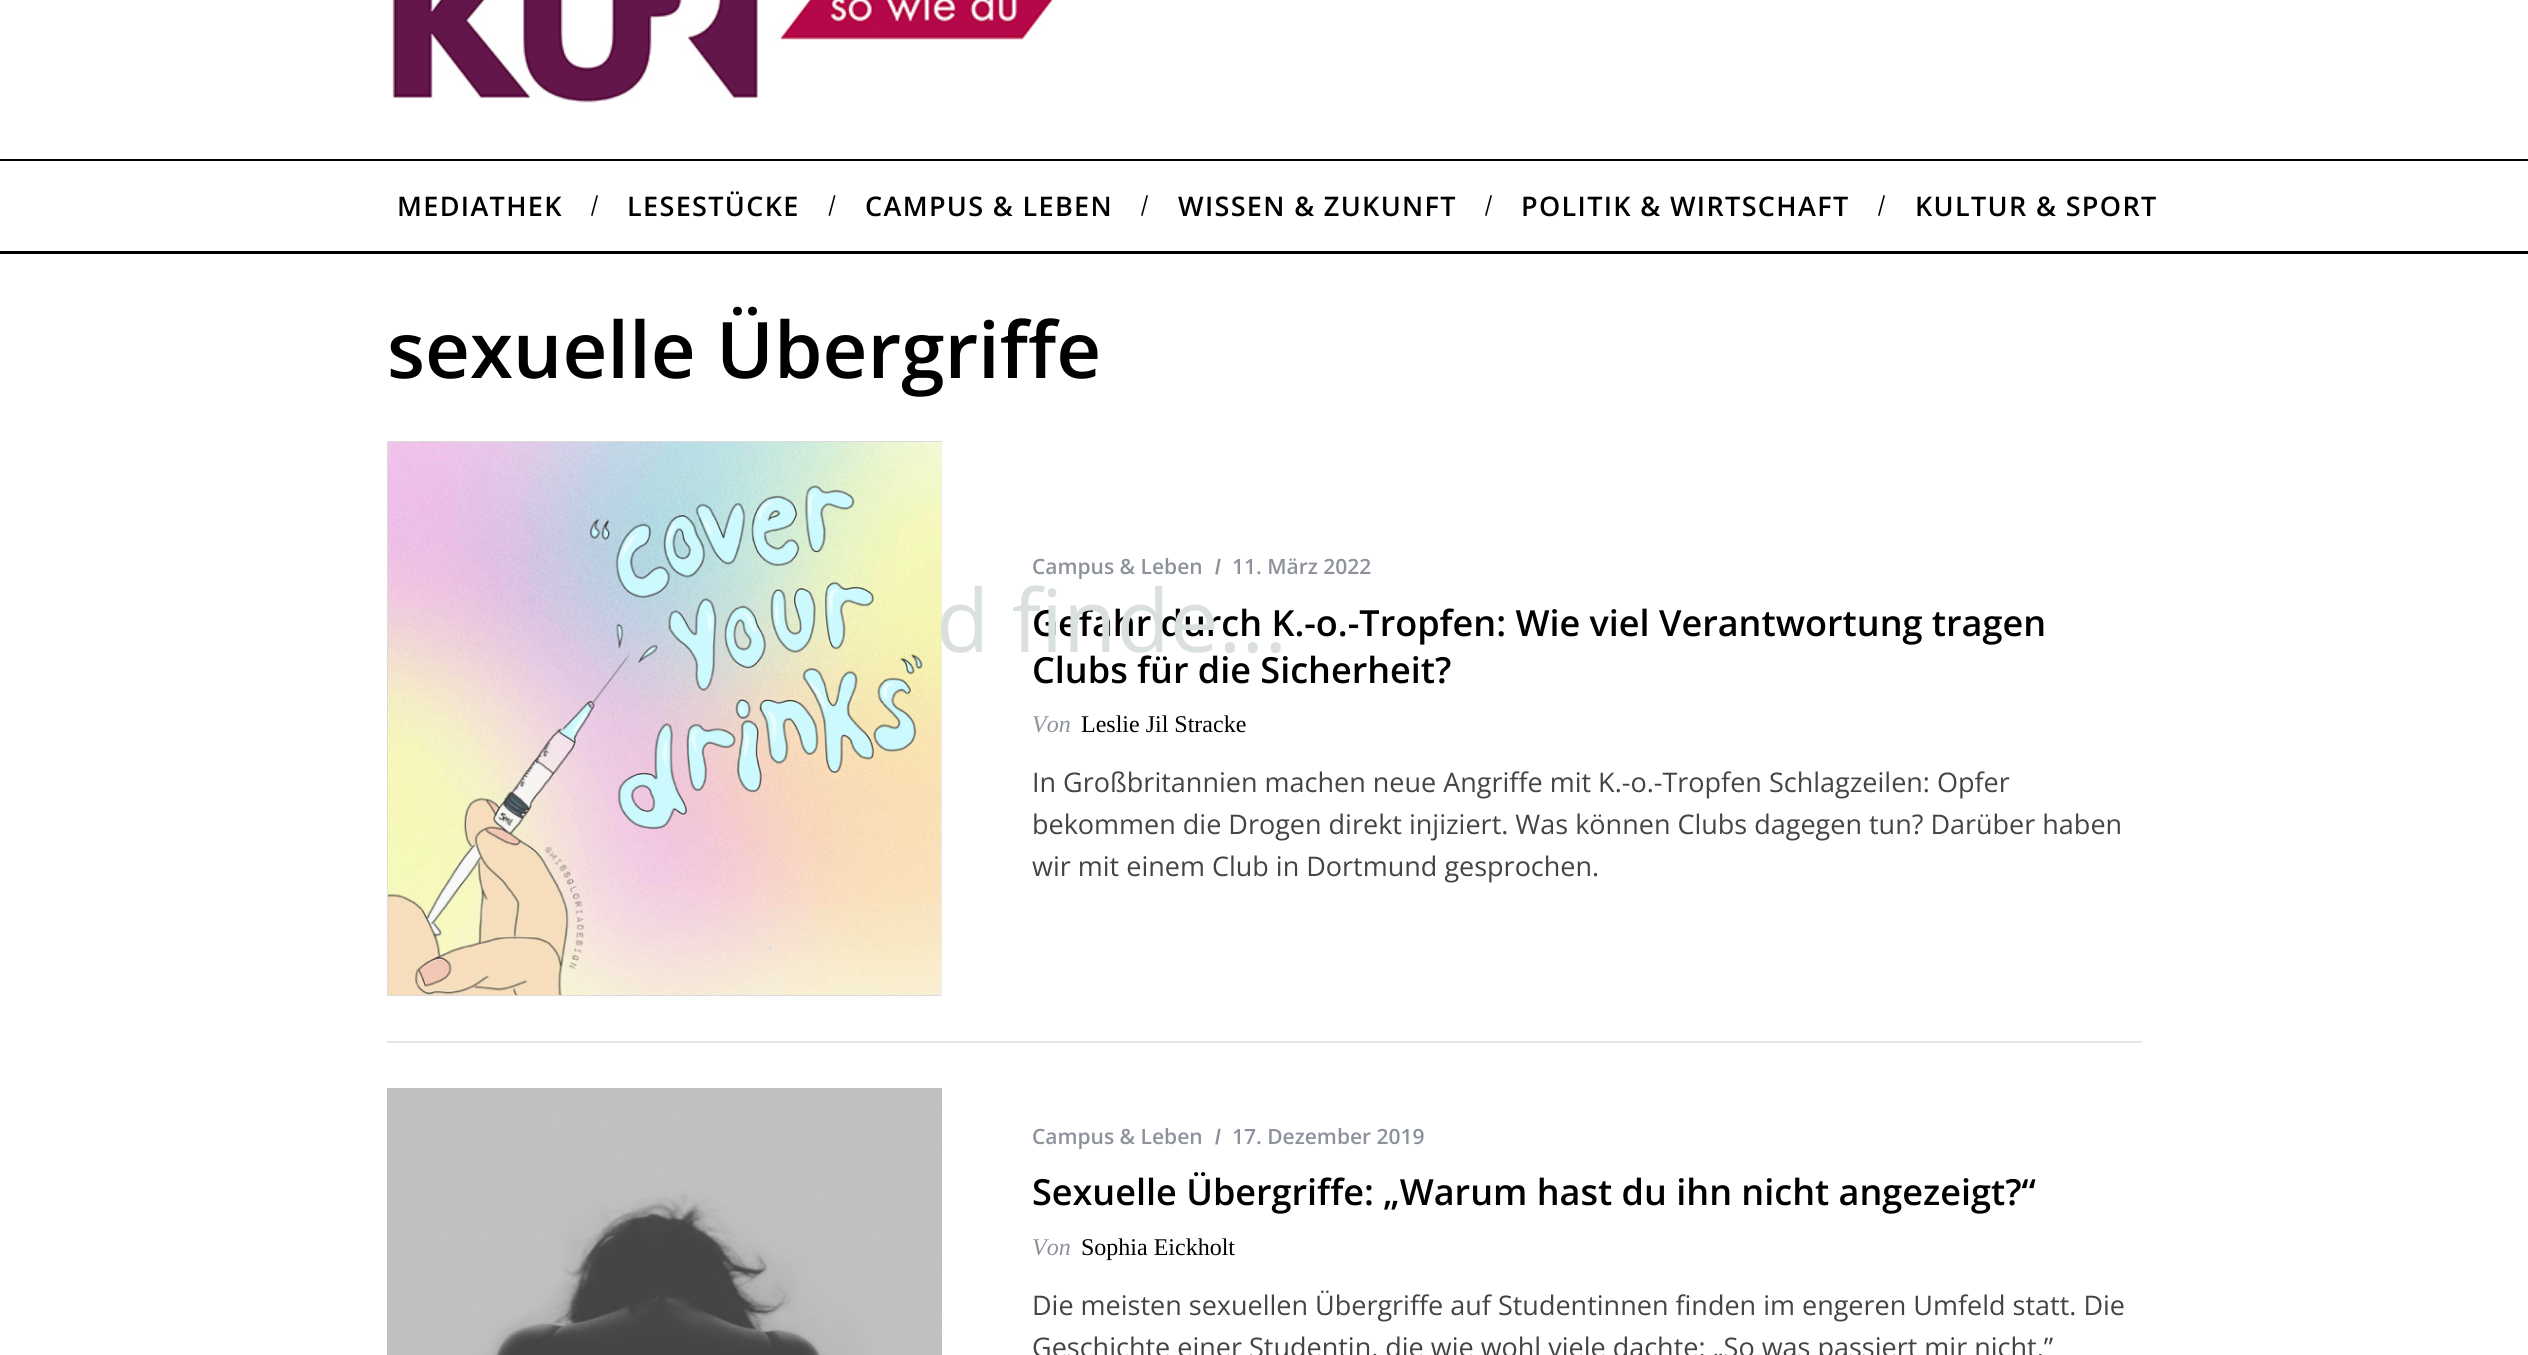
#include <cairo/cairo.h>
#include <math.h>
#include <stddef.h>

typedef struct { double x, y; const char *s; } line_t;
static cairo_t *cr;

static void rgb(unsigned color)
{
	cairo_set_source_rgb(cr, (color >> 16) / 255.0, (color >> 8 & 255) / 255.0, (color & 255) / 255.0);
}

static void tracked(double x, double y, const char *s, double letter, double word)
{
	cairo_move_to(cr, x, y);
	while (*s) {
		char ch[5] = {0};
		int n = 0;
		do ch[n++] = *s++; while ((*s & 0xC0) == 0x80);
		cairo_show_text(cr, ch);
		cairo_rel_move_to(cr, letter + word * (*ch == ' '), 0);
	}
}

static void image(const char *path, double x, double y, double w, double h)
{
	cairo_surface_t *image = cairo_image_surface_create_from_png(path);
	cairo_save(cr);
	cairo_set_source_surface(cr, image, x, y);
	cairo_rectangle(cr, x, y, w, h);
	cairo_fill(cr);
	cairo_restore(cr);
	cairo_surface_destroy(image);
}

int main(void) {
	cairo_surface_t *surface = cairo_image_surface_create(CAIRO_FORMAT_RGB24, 2528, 1355);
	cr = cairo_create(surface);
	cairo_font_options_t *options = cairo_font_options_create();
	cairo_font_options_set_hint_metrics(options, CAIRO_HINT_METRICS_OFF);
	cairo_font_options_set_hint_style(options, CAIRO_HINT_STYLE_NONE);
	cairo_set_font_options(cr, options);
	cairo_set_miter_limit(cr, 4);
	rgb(0xffffff);
	cairo_paint(cr);
	image("img/1.png", 392, 0, 662, 103);
	rgb(0x000000);
	cairo_rectangle(cr, 0, 159, 2528, 2);
	cairo_fill(cr);
	cairo_rectangle(cr, 0, 251, 2528, 3);
	cairo_fill(cr);
	cairo_new_path(cr);
	cairo_move_to(cr, 596.5, 195);
	cairo_line_to(cr, 598, 195.5);
	cairo_line_to(cr, 592.5, 216);
	cairo_line_to(cr, 591, 215.5);
	cairo_close_path(cr);
	cairo_fill(cr);
	cairo_new_path(cr);
	cairo_move_to(cr, 834, 195);
	cairo_line_to(cr, 835.5, 195.5);
	cairo_line_to(cr, 830, 216);
	cairo_line_to(cr, 828.5, 215.5);
	cairo_close_path(cr);
	cairo_fill(cr);
	cairo_new_path(cr);
	cairo_move_to(cr, 1146.5, 195);
	cairo_line_to(cr, 1148, 195.5);
	cairo_line_to(cr, 1142.5, 216);
	cairo_line_to(cr, 1141, 215.5);
	cairo_close_path(cr);
	cairo_fill(cr);
	cairo_new_path(cr);
	cairo_move_to(cr, 1490.5, 195);
	cairo_line_to(cr, 1492, 195.5);
	cairo_line_to(cr, 1486.5, 216);
	cairo_line_to(cr, 1485, 215.5);
	cairo_close_path(cr);
	cairo_fill(cr);
	cairo_new_path(cr);
	cairo_move_to(cr, 1883.5, 195);
	cairo_line_to(cr, 1885, 195.5);
	cairo_line_to(cr, 1879.5, 216);
	cairo_line_to(cr, 1878, 215.5);
	cairo_close_path(cr);
	cairo_fill(cr);
	image("img/2.png", 387, 441, 555, 555);
	rgb(0xe6e6e6);
	cairo_rectangle(cr, 387, 1041, 1755, 2);
	cairo_fill(cr);
	image("img/3.png", 387, 1088, 555, 267);
	cairo_select_font_face(cr, "Open Sans SemiBold", CAIRO_FONT_SLANT_NORMAL, CAIRO_FONT_WEIGHT_NORMAL);
	cairo_set_font_size(cr, 27);
	rgb(0x000000);
	{
		static const line_t items[] = {
			{397, 216, "MEDIATHEK"},
			{627, 216, "LESESTÜCKE"},
			{865, 216, "CAMPUS & LEBEN"},
			{1178, 216, "WISSEN & ZUKUNFT"},
			{1521, 216, "POLITIK & WIRTSCHAFT"},
			{1915, 216, "KULTUR & SPORT"},
		};
		for (size_t i = 0; i < sizeof items / sizeof *items; i++) {
			tracked(items[i].x, items[i].y, items[i].s, 1.35, 0);
		}
	}
	cairo_set_font_size(cr, 78);
	cairo_move_to(cr, 387, 378);
	cairo_show_text(cr, "sexuelle Übergriffe");
	cairo_set_font_size(cr, 21);
	rgb(0x8c919b);
	cairo_move_to(cr, 1032, 574);
	cairo_show_text(cr, "Campus & Leben");
	cairo_select_font_face(cr, "Liberation Sans", CAIRO_FONT_SLANT_NORMAL, CAIRO_FONT_WEIGHT_BOLD);
	cairo_move_to(cr, 1215, 574);
	cairo_show_text(cr, "/");
	cairo_select_font_face(cr, "Open Sans SemiBold", CAIRO_FONT_SLANT_NORMAL, CAIRO_FONT_WEIGHT_NORMAL);
	cairo_move_to(cr, 1232, 574);
	cairo_show_text(cr, "11. März 2022");
	cairo_set_font_size(cr, 36);
	rgb(0x000000);
	cairo_move_to(cr, 1032, 636);
	cairo_show_text(cr, "Gefahr durch K.-o.-Tropfen: Wie viel Verantwortung tragen");
	cairo_move_to(cr, 1032, 683);
	cairo_show_text(cr, "Clubs für die Sicherheit?");
	cairo_select_font_face(cr, "Liberation Serif", CAIRO_FONT_SLANT_ITALIC, CAIRO_FONT_WEIGHT_NORMAL);
	cairo_set_font_size(cr, 24);
	rgb(0x8c919b);
	cairo_move_to(cr, 1032, 732);
	cairo_show_text(cr, "Von");
	cairo_select_font_face(cr, "Liberation Serif", CAIRO_FONT_SLANT_NORMAL, CAIRO_FONT_WEIGHT_NORMAL);
	rgb(0x000000);
	cairo_move_to(cr, 1081, 732);
	cairo_show_text(cr, "Leslie Jil Stracke");
	cairo_select_font_face(cr, "Open Sans", CAIRO_FONT_SLANT_NORMAL, CAIRO_FONT_WEIGHT_NORMAL);
	cairo_set_font_size(cr, 27);
	rgb(0x444444);
	{
		static const line_t items[] = {
			{1032, 792, "In Großbritannien machen neue Angriffe mit K.-o.-Tropfen Schlagzeilen: Opfer"},
			{1032, 834, "bekommen die Drogen direkt injiziert. Was können Clubs dagegen tun? Darüber haben"},
			{1032, 876, "wir mit einem Club in Dortmund gesprochen."},
		};
		for (size_t i = 0; i < sizeof items / sizeof *items; i++) {
			cairo_move_to(cr, items[i].x, items[i].y);
			cairo_show_text(cr, items[i].s);
		}
	}
	cairo_select_font_face(cr, "Open Sans SemiBold", CAIRO_FONT_SLANT_NORMAL, CAIRO_FONT_WEIGHT_NORMAL);
	cairo_set_font_size(cr, 21);
	rgb(0x8c919b);
	cairo_move_to(cr, 1032, 1144);
	cairo_show_text(cr, "Campus & Leben");
	cairo_select_font_face(cr, "Liberation Sans", CAIRO_FONT_SLANT_NORMAL, CAIRO_FONT_WEIGHT_BOLD);
	cairo_move_to(cr, 1215, 1144);
	cairo_show_text(cr, "/");
	cairo_select_font_face(cr, "Open Sans SemiBold", CAIRO_FONT_SLANT_NORMAL, CAIRO_FONT_WEIGHT_NORMAL);
	cairo_move_to(cr, 1232, 1144);
	cairo_show_text(cr, "17. Dezember 2019");
	cairo_set_font_size(cr, 36);
	rgb(0x000000);
	cairo_move_to(cr, 1032, 1205);
	cairo_show_text(cr, "Sexuelle Übergriffe: „Warum hast du ihn nicht angezeigt?“");
	cairo_select_font_face(cr, "Liberation Serif", CAIRO_FONT_SLANT_ITALIC, CAIRO_FONT_WEIGHT_NORMAL);
	cairo_set_font_size(cr, 24);
	rgb(0x8c919b);
	cairo_move_to(cr, 1032, 1255);
	cairo_show_text(cr, "Von");
	cairo_select_font_face(cr, "Liberation Serif", CAIRO_FONT_SLANT_NORMAL, CAIRO_FONT_WEIGHT_NORMAL);
	rgb(0x000000);
	cairo_move_to(cr, 1081, 1255);
	cairo_show_text(cr, "Sophia Eickholt");
	cairo_select_font_face(cr, "Open Sans", CAIRO_FONT_SLANT_NORMAL, CAIRO_FONT_WEIGHT_NORMAL);
	cairo_set_font_size(cr, 27);
	rgb(0x444444);
	cairo_move_to(cr, 1032, 1315);
	cairo_show_text(cr, "Die meisten sexuellen Übergriffe auf Studentinnen finden im engeren Umfeld statt. Die");
	cairo_move_to(cr, 1032, 1357);
	cairo_show_text(cr, "Geschichte einer Studentin, die wie wohl viele dachte: „So was passiert mir nicht.”");
	cairo_set_font_size(cr, 87);
	rgb(0xdae0db);
	cairo_move_to(cr, 936, 652);
	cairo_show_text(cr, "d finde...");
	cairo_surface_write_to_png(surface, "page.png");
	cairo_font_options_destroy(options);
	cairo_destroy(cr);
	cairo_surface_destroy(surface);
	return 0;
}
